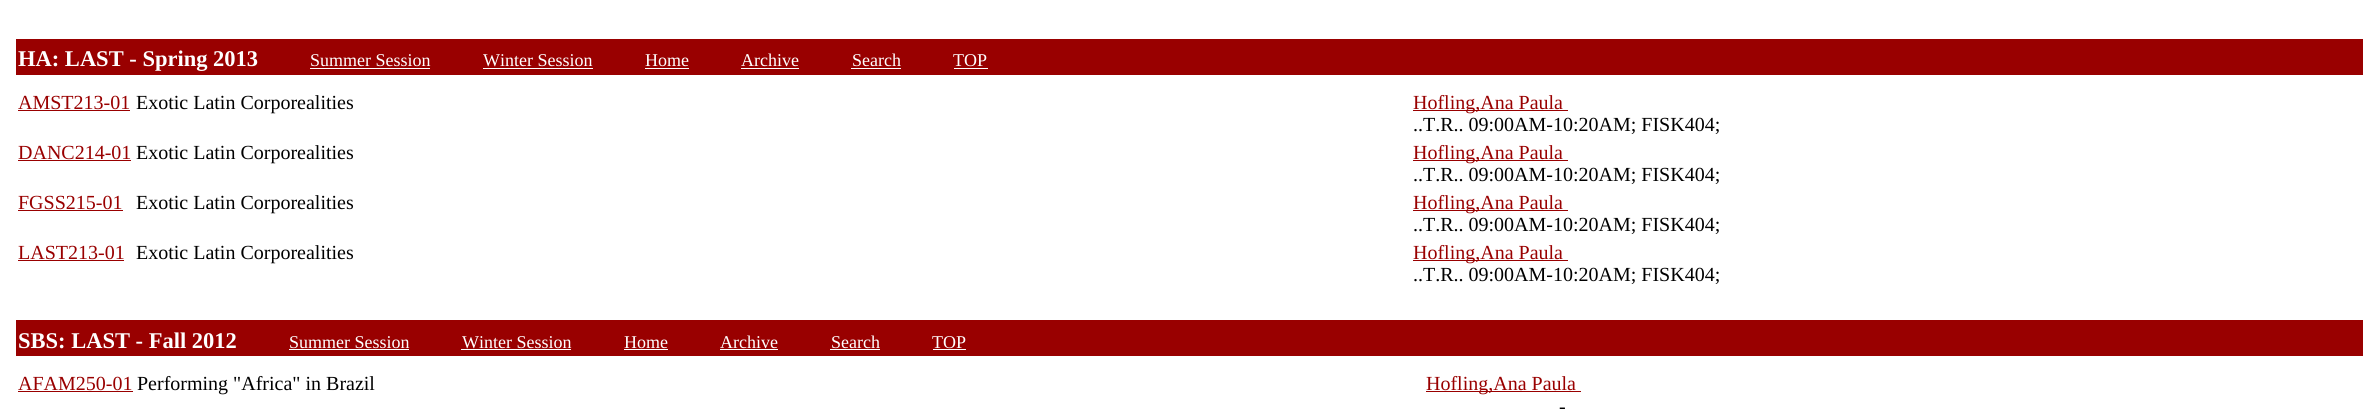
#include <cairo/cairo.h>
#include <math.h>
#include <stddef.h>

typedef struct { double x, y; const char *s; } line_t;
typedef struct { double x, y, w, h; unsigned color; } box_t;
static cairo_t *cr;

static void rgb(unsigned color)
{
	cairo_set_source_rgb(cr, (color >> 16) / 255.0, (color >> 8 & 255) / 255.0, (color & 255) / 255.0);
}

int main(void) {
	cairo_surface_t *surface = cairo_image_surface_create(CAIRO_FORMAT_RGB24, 2378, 409);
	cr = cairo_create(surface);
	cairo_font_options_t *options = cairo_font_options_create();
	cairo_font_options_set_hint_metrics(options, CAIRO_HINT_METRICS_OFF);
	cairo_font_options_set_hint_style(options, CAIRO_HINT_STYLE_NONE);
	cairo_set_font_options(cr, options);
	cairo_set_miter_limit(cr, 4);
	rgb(0xffffff);
	cairo_paint(cr);
	{
		static const box_t items[] = {
			{16, 39, 2347, 36, 0x990000},
			{310, 68, 120, 1, 0xffffff},
			{483, 68, 110, 1, 0xffffff},
			{645, 68, 44, 1, 0xffffff},
			{741, 68, 58, 1, 0xffffff},
			{851, 68, 50, 1, 0xffffff},
			{954, 68, 34, 1, 0xffffff},
			{18, 110, 112, 1, 0x990000},
			{1413, 110, 155, 1, 0x990000},
			{18, 160, 113, 1, 0x990000},
			{1413, 160, 155, 1, 0x990000},
			{18, 210, 105, 1, 0x990000},
			{1413, 210, 155, 1, 0x990000},
			{18, 260, 106, 1, 0x990000},
			{1413, 260, 155, 1, 0x990000},
			{16, 320, 2347, 36, 0x990000},
			{289, 349, 120, 1, 0xffffff},
			{461, 349, 110, 1, 0xffffff},
			{624, 349, 44, 1, 0xffffff},
			{720, 349, 58, 1, 0xffffff},
			{830, 349, 50, 1, 0xffffff},
			{933, 349, 33, 1, 0xffffff},
			{18, 391, 115, 1, 0x990000},
			{1426, 391, 155, 1, 0x990000},
		};
		for (size_t i = 0; i < sizeof items / sizeof *items; i++) {
			rgb(items[i].color);
			cairo_rectangle(cr, items[i].x, items[i].y, items[i].w, items[i].h);
			cairo_fill(cr);
		}
	}
	cairo_select_font_face(cr, "Liberation Serif", CAIRO_FONT_SLANT_NORMAL, CAIRO_FONT_WEIGHT_BOLD);
	cairo_set_font_size(cr, 22.5);
	rgb(0xffffff);
	cairo_move_to(cr, 18, 66);
	cairo_show_text(cr, "HA: LAST - Spring 2013");
	cairo_select_font_face(cr, "Liberation Serif", CAIRO_FONT_SLANT_NORMAL, CAIRO_FONT_WEIGHT_NORMAL);
	cairo_set_font_size(cr, 18);
	{
		static const line_t items[] = {
			{310, 66, "Summer Session"},
			{483, 66, "Winter Session"},
			{645, 66, "Home"},
			{741, 66, "Archive"},
			{852, 66, "Search"},
			{953, 66, "TOP"},
		};
		for (size_t i = 0; i < sizeof items / sizeof *items; i++) {
			cairo_move_to(cr, items[i].x, items[i].y);
			cairo_show_text(cr, items[i].s);
		}
	}
	cairo_set_font_size(cr, 20);
	rgb(0x990000);
	cairo_move_to(cr, 18, 109);
	cairo_show_text(cr, "AMST213-01");
	rgb(0x000000);
	cairo_move_to(cr, 136, 109);
	cairo_show_text(cr, "Exotic Latin Corporealities");
	rgb(0x990000);
	cairo_move_to(cr, 1413, 109);
	cairo_show_text(cr, "Hofling,Ana Paula");
	rgb(0x000000);
	cairo_move_to(cr, 1413, 131);
	cairo_show_text(cr, "..T.R.. 09:00AM-10:20AM; FISK404;");
	rgb(0x990000);
	cairo_move_to(cr, 18, 159);
	cairo_show_text(cr, "DANC214-01");
	rgb(0x000000);
	cairo_move_to(cr, 136, 159);
	cairo_show_text(cr, "Exotic Latin Corporealities");
	rgb(0x990000);
	cairo_move_to(cr, 1413, 159);
	cairo_show_text(cr, "Hofling,Ana Paula");
	rgb(0x000000);
	cairo_move_to(cr, 1413, 181);
	cairo_show_text(cr, "..T.R.. 09:00AM-10:20AM; FISK404;");
	rgb(0x990000);
	cairo_move_to(cr, 18, 209);
	cairo_show_text(cr, "FGSS215-01");
	rgb(0x000000);
	cairo_move_to(cr, 136, 209);
	cairo_show_text(cr, "Exotic Latin Corporealities");
	rgb(0x990000);
	cairo_move_to(cr, 1413, 209);
	cairo_show_text(cr, "Hofling,Ana Paula");
	rgb(0x000000);
	cairo_move_to(cr, 1413, 231);
	cairo_show_text(cr, "..T.R.. 09:00AM-10:20AM; FISK404;");
	rgb(0x990000);
	cairo_move_to(cr, 18, 259);
	cairo_show_text(cr, "LAST213-01");
	rgb(0x000000);
	cairo_move_to(cr, 136, 259);
	cairo_show_text(cr, "Exotic Latin Corporealities");
	rgb(0x990000);
	cairo_move_to(cr, 1413, 259);
	cairo_show_text(cr, "Hofling,Ana Paula");
	rgb(0x000000);
	cairo_move_to(cr, 1413, 281);
	cairo_show_text(cr, "..T.R.. 09:00AM-10:20AM; FISK404;");
	cairo_select_font_face(cr, "Liberation Serif", CAIRO_FONT_SLANT_NORMAL, CAIRO_FONT_WEIGHT_BOLD);
	cairo_set_font_size(cr, 22.5);
	rgb(0xffffff);
	cairo_move_to(cr, 18, 348);
	cairo_show_text(cr, "SBS: LAST - Fall 2012");
	cairo_select_font_face(cr, "Liberation Serif", CAIRO_FONT_SLANT_NORMAL, CAIRO_FONT_WEIGHT_NORMAL);
	cairo_set_font_size(cr, 18);
	{
		static const line_t items[] = {
			{289, 348, "Summer Session"},
			{462, 348, "Winter Session"},
			{624, 348, "Home"},
			{720, 348, "Archive"},
			{831, 348, "Search"},
			{932, 348, "TOP"},
		};
		for (size_t i = 0; i < sizeof items / sizeof *items; i++) {
			cairo_move_to(cr, items[i].x, items[i].y);
			cairo_show_text(cr, items[i].s);
		}
	}
	cairo_set_font_size(cr, 20);
	rgb(0x990000);
	cairo_move_to(cr, 18, 390);
	cairo_show_text(cr, "AFAM250-01");
	rgb(0x000000);
	cairo_move_to(cr, 137, 390);
	cairo_show_text(cr, "Performing \"Africa\" in Brazil");
	rgb(0x990000);
	cairo_move_to(cr, 1426, 390);
	cairo_show_text(cr, "Hofling,Ana Paula");
	rgb(0x000000);
	cairo_move_to(cr, 1559, 413);
	cairo_show_text(cr, "-");
	cairo_surface_write_to_png(surface, "page.png");
	cairo_font_options_destroy(options);
	cairo_destroy(cr);
	cairo_surface_destroy(surface);
	return 0;
}
